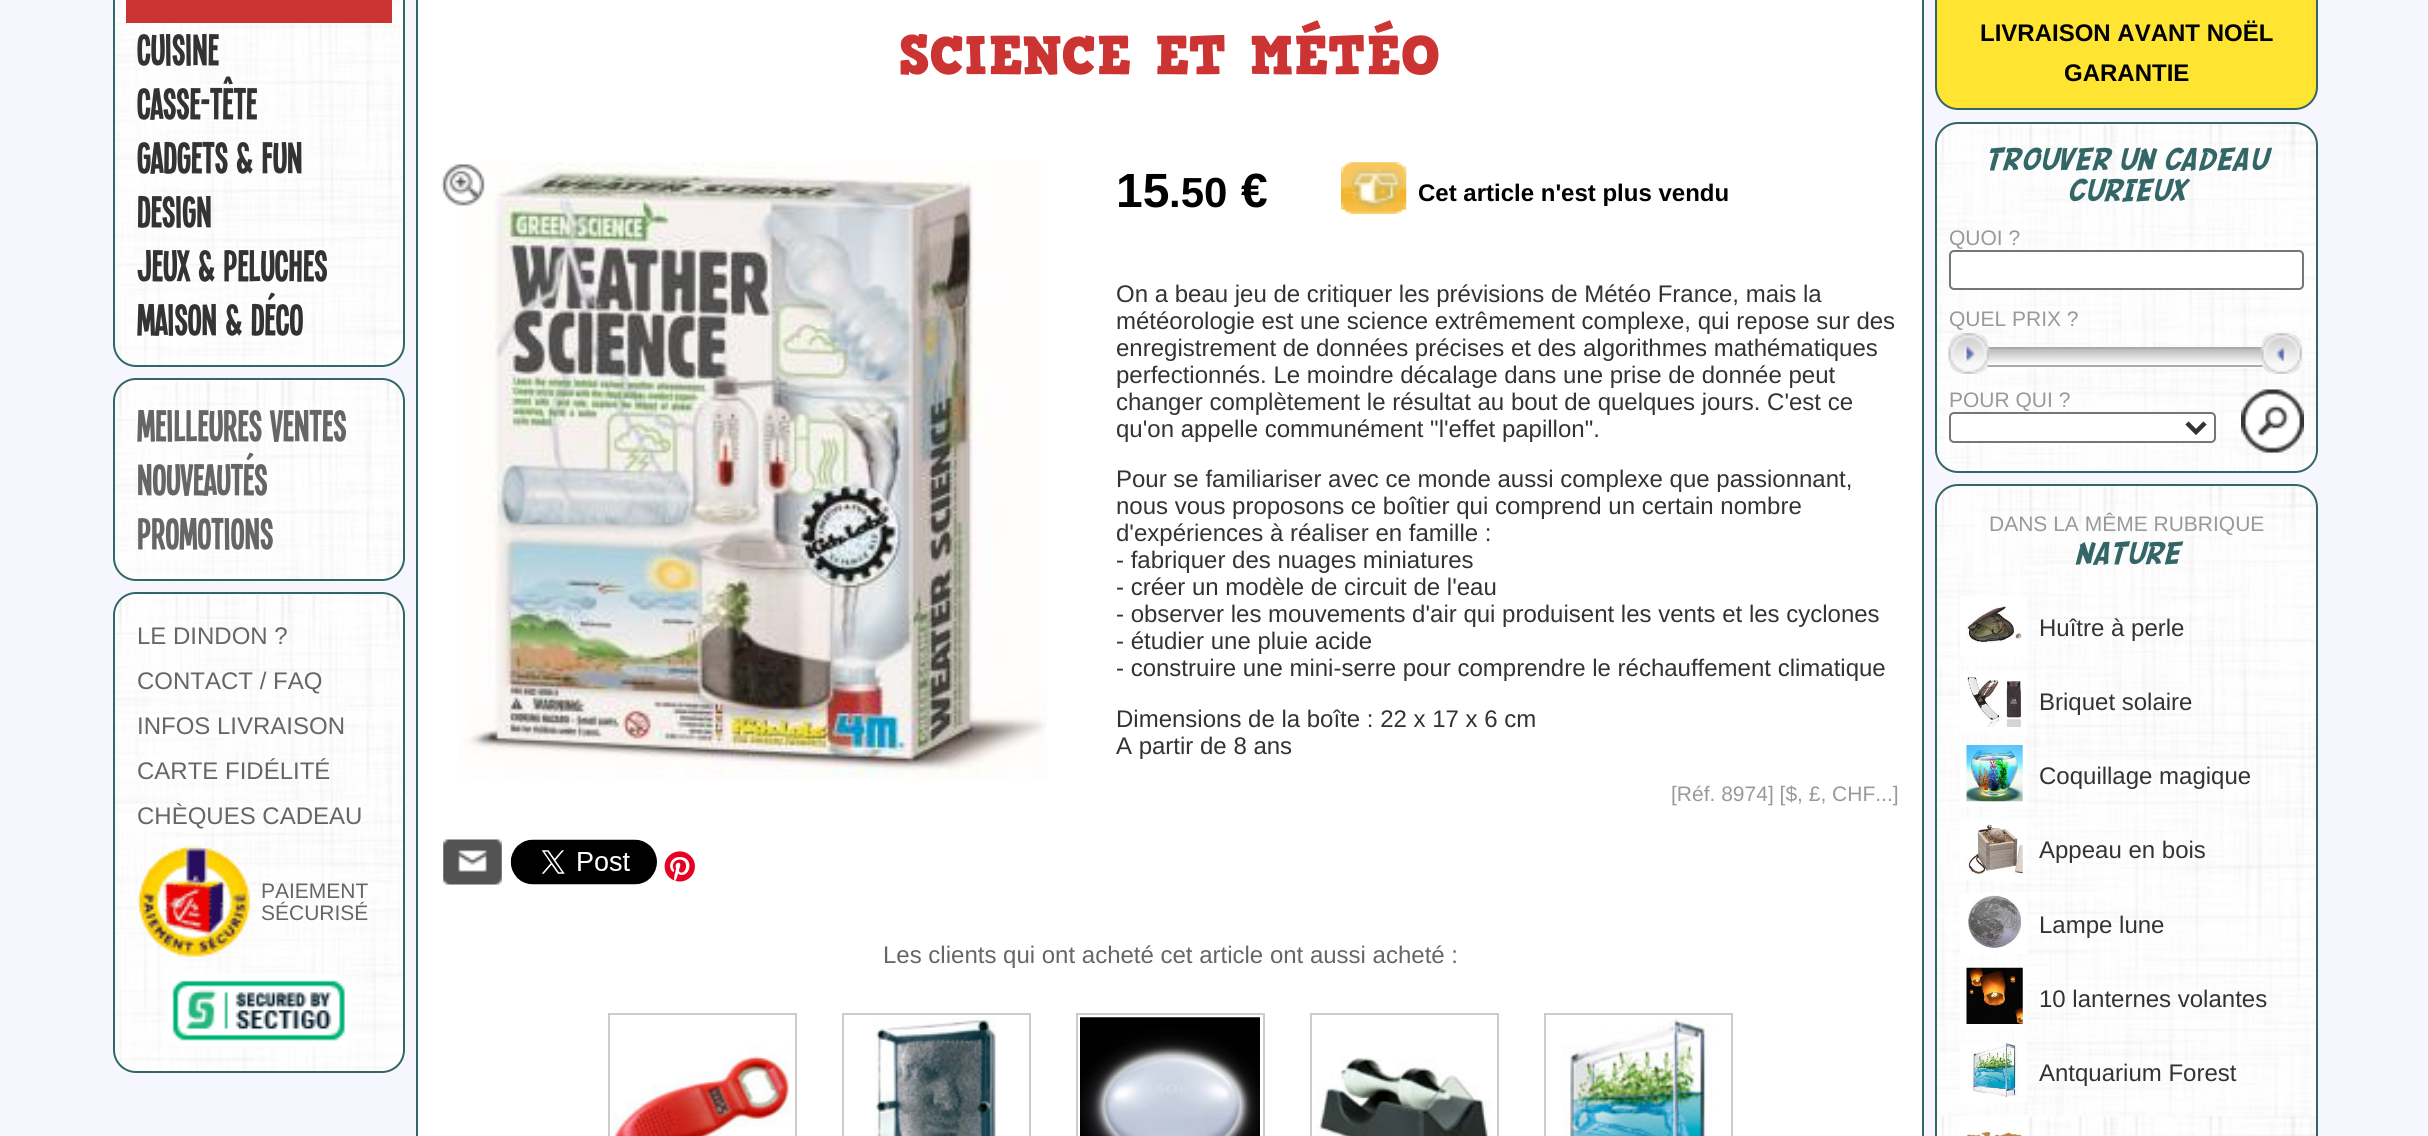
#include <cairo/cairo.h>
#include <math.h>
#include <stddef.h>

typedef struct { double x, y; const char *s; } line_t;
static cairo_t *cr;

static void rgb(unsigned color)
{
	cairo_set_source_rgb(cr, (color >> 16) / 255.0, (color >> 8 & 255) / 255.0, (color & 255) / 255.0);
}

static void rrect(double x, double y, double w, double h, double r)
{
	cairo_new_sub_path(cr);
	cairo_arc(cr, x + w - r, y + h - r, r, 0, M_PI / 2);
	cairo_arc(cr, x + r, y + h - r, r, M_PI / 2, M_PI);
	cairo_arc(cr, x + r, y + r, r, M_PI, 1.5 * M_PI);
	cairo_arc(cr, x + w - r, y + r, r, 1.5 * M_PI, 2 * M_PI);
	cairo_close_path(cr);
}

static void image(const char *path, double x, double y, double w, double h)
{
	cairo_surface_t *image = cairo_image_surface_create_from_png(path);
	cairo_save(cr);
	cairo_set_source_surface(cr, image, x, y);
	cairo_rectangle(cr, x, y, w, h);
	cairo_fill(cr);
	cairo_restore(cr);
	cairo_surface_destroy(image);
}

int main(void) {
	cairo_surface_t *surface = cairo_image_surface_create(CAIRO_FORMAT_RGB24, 2428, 1136);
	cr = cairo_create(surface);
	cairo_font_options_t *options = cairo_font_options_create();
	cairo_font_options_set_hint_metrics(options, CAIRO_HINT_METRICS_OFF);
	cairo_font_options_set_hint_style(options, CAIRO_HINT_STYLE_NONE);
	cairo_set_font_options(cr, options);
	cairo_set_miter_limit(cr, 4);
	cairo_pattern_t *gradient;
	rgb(0xf6f6ff);
	cairo_paint(cr);
	image("img/1.png", 113, 0, 292, 367);
	rrect(114, -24, 290, 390, 22);
	rgb(0x336666);
	cairo_stroke(cr);
	rgb(0xcc3333);
	cairo_rectangle(cr, 126, 0, 266, 23);
	cairo_fill(cr);
	image("img/2.png", 113, 378, 292, 203);
	rrect(114, 379, 290, 201, 22);
	rgb(0x336666);
	cairo_stroke(cr);
	image("img/3.png", 113, 592, 292, 481);
	rrect(114, 593, 290, 479, 22);
	cairo_stroke(cr);
	image("img/4.png", 137, 846, 113, 112);
	image("img/5.png", 167, 974, 184, 73);
	rgb(0xffffff);
	cairo_rectangle(cr, 417, -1, 1506, 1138);
	cairo_fill_preserve(cr);
	rgb(0x336666);
	cairo_stroke(cr);
	image("img/6.png", 458, 162, 589, 616);
	image("img/7.png", 441, 164, 44, 42);
	image("img/8.png", 443, 839, 59, 46);
	image("img/9.png", 510, 839, 147, 46);
	image("img/10.png", 664, 851, 31, 31);
	image("img/11.png", 1341, 162, 66, 52);
	cairo_rectangle(cr, 609, 1014, 187, 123);
	rgb(0xcccccc);
	cairo_stroke(cr);
	image("img/12.png", 612, 1045, 179, 91);
	cairo_rectangle(cr, 843, 1014, 187, 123);
	cairo_stroke(cr);
	image("img/13.png", 873, 1017, 124, 119);
	cairo_rectangle(cr, 1077, 1014, 187, 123);
	cairo_stroke(cr);
	image("img/14.png", 1080, 1017, 180, 119);
	cairo_rectangle(cr, 1311, 1014, 187, 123);
	cairo_stroke(cr);
	image("img/15.png", 1316, 1058, 176, 78);
	cairo_rectangle(cr, 1545, 1014, 187, 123);
	cairo_stroke(cr);
	image("img/16.png", 1562, 1017, 151, 119);
	rgb(0xffe531);
	rrect(1936, -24, 381, 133, 22);
	cairo_fill_preserve(cr);
	rgb(0x336666);
	cairo_stroke(cr);
	image("img/17.png", 1935, 122, 382, 351);
	rrect(1936, 123, 381, 349, 22);
	cairo_stroke(cr);
	rgb(0xffffff);
	rrect(1950, 251, 353, 38, 4);
	cairo_fill_preserve(cr);
	rgb(0x767676);
	cairo_stroke(cr);
	cairo_rectangle(cr, 1972, 348, 315, 18);
	rgb(0xaaaaaa);
	cairo_stroke(cr);
	gradient = cairo_pattern_create_linear(2130, 349, 2130, 365);
	cairo_pattern_add_color_stop_rgba(gradient, 0, 0.729, 0.729, 0.729, 1);
	cairo_pattern_add_color_stop_rgba(gradient, 1, 1, 1, 1, 1);
	cairo_set_source(cr, gradient);
	cairo_pattern_destroy(gradient);
	cairo_rectangle(cr, 1988, 349, 274, 16);
	cairo_fill(cr);
	rgb(0xe6e6e6);
	rrect(1949, 333, 40, 41, 14);
	cairo_fill(cr);
	image("img/18.png", 1948, 333, 41, 41);
	rrect(2261, 333, 41, 41, 14);
	cairo_fill(cr);
	image("img/19.png", 2261, 333, 41, 41);
	rgb(0xffffff);
	rrect(1950, 413, 265, 29, 4);
	cairo_fill_preserve(cr);
	rgb(0x767676);
	cairo_stroke(cr);
	cairo_new_path(cr);
	cairo_move_to(cr, 2187, 423);
	cairo_line_to(cr, 2196, 432);
	cairo_line_to(cr, 2205, 423);
	rgb(0x333333);
	cairo_set_line_width(cr, 4.5);
	cairo_stroke(cr);
	image("img/20.png", 2241, 389, 63, 64);
	image("img/21.png", 1935, 484, 383, 652);
	rrect(1936, 485, 381, 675, 22);
	rgb(0x336666);
	cairo_set_line_width(cr, 2);
	cairo_stroke(cr);
	rgb(0xffffff);
	cairo_rectangle(cr, 1960, 596, 67, 61);
	cairo_fill(cr);
	image("img/22.png", 1966, 605, 56, 39);
	cairo_rectangle(cr, 1960, 671, 67, 60);
	cairo_fill(cr);
	image("img/23.png", 1967, 676, 55, 51);
	cairo_rectangle(cr, 1960, 745, 67, 61);
	cairo_fill(cr);
	image("img/24.png", 1966, 745, 57, 57);
	cairo_rectangle(cr, 1960, 819, 67, 61);
	cairo_fill(cr);
	image("img/25.png", 1966, 824, 57, 51);
	cairo_rectangle(cr, 1960, 893, 67, 61);
	cairo_fill(cr);
	image("img/26.png", 1968, 894, 54, 54);
	cairo_rectangle(cr, 1960, 968, 67, 60);
	cairo_fill(cr);
	image("img/27.png", 1966, 967, 57, 57);
	cairo_rectangle(cr, 1960, 1042, 67, 61);
	cairo_fill(cr);
	image("img/28.png", 1971, 1042, 47, 56);
	cairo_rectangle(cr, 1960, 1116, 67, 20);
	cairo_fill(cr);
	image("img/29.png", 1966, 1129, 56, 7);
	cairo_select_font_face(cr, "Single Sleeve", CAIRO_FONT_SLANT_NORMAL, CAIRO_FONT_WEIGHT_NORMAL);
	cairo_set_font_size(cr, 24);
	rgb(0x333333);
	{
		static const line_t items[] = {
			{137, 65, "CUISINE"},
			{137, 119, "CASSE-TÊTE"},
			{137, 173, "GADGETS & FUN"},
			{137, 227, "DESIGN"},
			{137, 281, "JEUX & PELUCHES"},
			{137, 335, "MAISON & DÉCO"},
		};
		for (size_t i = 0; i < sizeof items / sizeof *items; i++) {
			cairo_move_to(cr, items[i].x, items[i].y);
			cairo_show_text(cr, items[i].s);
		}
	}
	rgb(0x666666);
	{
		static const line_t items[] = {
			{137, 441, "MEILLEURES VENTES"},
			{137, 495, "NOUVEAUTÉS"},
			{137, 549, "PROMOTIONS"},
		};
		for (size_t i = 0; i < sizeof items / sizeof *items; i++) {
			cairo_move_to(cr, items[i].x, items[i].y);
			cairo_show_text(cr, items[i].s);
		}
	}
	cairo_select_font_face(cr, "Liberation Sans", CAIRO_FONT_SLANT_NORMAL, CAIRO_FONT_WEIGHT_NORMAL);
	{
		static const line_t items[] = {
			{137, 644, "LE DINDON ?"},
			{137, 689, "CONTACT / FAQ"},
			{137, 734, "INFOS LIVRAISON"},
			{137, 779, "CARTE FIDÉLITÉ"},
			{137, 824, "CHÈQUES CADEAU"},
		};
		for (size_t i = 0; i < sizeof items / sizeof *items; i++) {
			cairo_move_to(cr, items[i].x, items[i].y);
			cairo_show_text(cr, items[i].s);
		}
	}
	cairo_set_font_size(cr, 21);
	cairo_move_to(cr, 261, 898);
	cairo_show_text(cr, "PAIEMENT");
	cairo_move_to(cr, 261, 920);
	cairo_show_text(cr, "SÉCURISÉ");
	cairo_select_font_face(cr, "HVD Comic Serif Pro", CAIRO_FONT_SLANT_NORMAL, CAIRO_FONT_WEIGHT_NORMAL);
	cairo_set_font_size(cr, 54);
	rgb(0xcc3333);
	cairo_move_to(cr, 899, 74);
	cairo_show_text(cr, "SCIENCE ET MÉTÉO");
	cairo_select_font_face(cr, "Liberation Sans", CAIRO_FONT_SLANT_NORMAL, CAIRO_FONT_WEIGHT_BOLD);
	cairo_set_font_size(cr, 48);
	rgb(0x000000);
	cairo_move_to(cr, 1116, 207);
	cairo_show_text(cr, "15");
	cairo_set_font_size(cr, 42);
	cairo_move_to(cr, 1169, 207);
	cairo_show_text(cr, ".50");
	cairo_set_font_size(cr, 48);
	cairo_move_to(cr, 1241, 207);
	cairo_show_text(cr, "€");
	cairo_set_font_size(cr, 24);
	cairo_move_to(cr, 1418, 201);
	cairo_show_text(cr, "Cet article n'est plus vendu");
	cairo_select_font_face(cr, "Liberation Sans", CAIRO_FONT_SLANT_NORMAL, CAIRO_FONT_WEIGHT_NORMAL);
	rgb(0x333333);
	{
		static const line_t items[] = {
			{1116, 302, "On a beau jeu de critiquer les prévisions de Météo France, mais la"},
			{1116, 329, "météorologie est une science extrêmement complexe, qui repose sur des"},
			{1116, 356, "enregistrement de données précises et des algorithmes mathématiques"},
			{1116, 383, "perfectionnés. Le moindre décalage dans une prise de donnée peut"},
			{1116, 410, "changer complètement le résultat au bout de quelques jours. C'est ce"},
			{1116, 437, "qu'on appelle communément \"l'effet papillon\"."},
			{1116, 487, "Pour se familiariser avec ce monde aussi complexe que passionnant,"},
			{1116, 514, "nous vous proposons ce boîtier qui comprend un certain nombre"},
			{1116, 541, "d'expériences à réaliser en famille :"},
			{1116, 568, "- fabriquer des nuages miniatures"},
			{1116, 595, "- créer un modèle de circuit de l'eau"},
			{1116, 622, "- observer les mouvements d'air qui produisent les vents et les cyclones"},
			{1116, 649, "- étudier une pluie acide"},
			{1116, 676, "- construire une mini-serre pour comprendre le réchauffement climatique"},
			{1116, 727, "Dimensions de la boîte : 22 x 17 x 6 cm"},
			{1116, 754, "A partir de 8 ans"},
		};
		for (size_t i = 0; i < sizeof items / sizeof *items; i++) {
			cairo_move_to(cr, items[i].x, items[i].y);
			cairo_show_text(cr, items[i].s);
		}
	}
	cairo_set_font_size(cr, 21);
	rgb(0x999999);
	cairo_move_to(cr, 1671, 801);
	cairo_show_text(cr, "[Réf. 8974] [$, £, CHF...]");
	cairo_set_font_size(cr, 24);
	rgb(0x666666);
	cairo_move_to(cr, 883, 963);
	cairo_show_text(cr, "Les clients qui ont acheté cet article ont aussi acheté :");
	cairo_select_font_face(cr, "Liberation Sans", CAIRO_FONT_SLANT_NORMAL, CAIRO_FONT_WEIGHT_BOLD);
	rgb(0x000000);
	cairo_move_to(cr, 1980, 41);
	cairo_show_text(cr, "LIVRAISON AVANT NOËL");
	cairo_move_to(cr, 2064, 81);
	cairo_show_text(cr, "GARANTIE");
	cairo_select_font_face(cr, "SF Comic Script", CAIRO_FONT_SLANT_NORMAL, CAIRO_FONT_WEIGHT_NORMAL);
	cairo_set_font_size(cr, 30);
	rgb(0x336666);
	cairo_move_to(cr, 1985, 169);
	cairo_show_text(cr, "TROUVER UN CADEAU");
	cairo_move_to(cr, 2066, 200);
	cairo_show_text(cr, "CURIEUX");
	cairo_select_font_face(cr, "Liberation Sans", CAIRO_FONT_SLANT_NORMAL, CAIRO_FONT_WEIGHT_NORMAL);
	cairo_set_font_size(cr, 21);
	rgb(0x999999);
	{
		static const line_t items[] = {
			{1949, 245, "QUOI ?"},
			{1949, 326, "QUEL PRIX ?"},
			{1949, 407, "POUR QUI ?"},
			{1989, 531, "DANS LA MÊME RUBRIQUE"},
		};
		for (size_t i = 0; i < sizeof items / sizeof *items; i++) {
			cairo_move_to(cr, items[i].x, items[i].y);
			cairo_show_text(cr, items[i].s);
		}
	}
	cairo_select_font_face(cr, "SF Comic Script", CAIRO_FONT_SLANT_NORMAL, CAIRO_FONT_WEIGHT_NORMAL);
	cairo_set_font_size(cr, 30);
	rgb(0x336666);
	cairo_move_to(cr, 2074, 563);
	cairo_show_text(cr, "NATURE");
	cairo_select_font_face(cr, "Liberation Sans", CAIRO_FONT_SLANT_NORMAL, CAIRO_FONT_WEIGHT_NORMAL);
	cairo_set_font_size(cr, 24);
	rgb(0x333333);
	{
		static const line_t items[] = {
			{2039, 636, "Huître à perle"},
			{2039, 710, "Briquet solaire"},
			{2039, 784, "Coquillage magique"},
			{2039, 858, "Appeau en bois"},
			{2039, 933, "Lampe lune"},
			{2039, 1007, "10 lanternes volantes"},
			{2039, 1081, "Antquarium Forest"},
		};
		for (size_t i = 0; i < sizeof items / sizeof *items; i++) {
			cairo_move_to(cr, items[i].x, items[i].y);
			cairo_show_text(cr, items[i].s);
		}
	}
	cairo_surface_write_to_png(surface, "page.png");
	cairo_font_options_destroy(options);
	cairo_destroy(cr);
	cairo_surface_destroy(surface);
	return 0;
}
